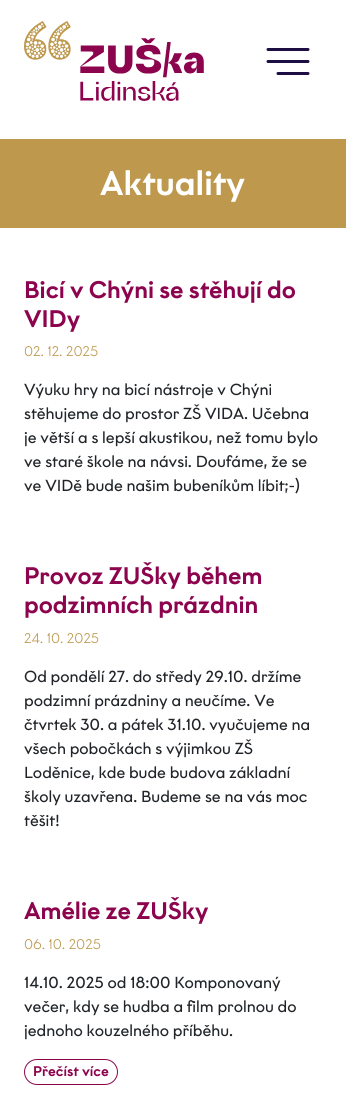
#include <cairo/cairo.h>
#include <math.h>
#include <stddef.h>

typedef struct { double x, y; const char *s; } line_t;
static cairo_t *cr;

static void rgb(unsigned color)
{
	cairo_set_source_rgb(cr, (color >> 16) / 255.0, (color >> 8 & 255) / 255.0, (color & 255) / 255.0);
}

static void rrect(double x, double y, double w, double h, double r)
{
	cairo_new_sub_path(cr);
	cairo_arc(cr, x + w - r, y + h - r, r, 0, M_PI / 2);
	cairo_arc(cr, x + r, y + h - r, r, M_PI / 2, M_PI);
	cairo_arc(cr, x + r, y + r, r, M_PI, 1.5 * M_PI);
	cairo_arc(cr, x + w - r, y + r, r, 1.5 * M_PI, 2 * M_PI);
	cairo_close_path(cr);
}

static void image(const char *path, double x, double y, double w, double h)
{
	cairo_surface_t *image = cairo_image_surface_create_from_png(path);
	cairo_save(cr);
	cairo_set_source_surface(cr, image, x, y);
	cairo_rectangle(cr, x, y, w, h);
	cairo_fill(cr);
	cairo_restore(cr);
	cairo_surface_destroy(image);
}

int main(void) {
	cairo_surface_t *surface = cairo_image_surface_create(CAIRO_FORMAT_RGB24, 346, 1120);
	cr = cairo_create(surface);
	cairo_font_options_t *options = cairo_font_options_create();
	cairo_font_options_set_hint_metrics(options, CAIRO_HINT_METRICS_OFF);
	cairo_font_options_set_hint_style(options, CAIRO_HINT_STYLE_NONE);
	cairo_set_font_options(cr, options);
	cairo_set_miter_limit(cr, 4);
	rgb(0xffffff);
	cairo_paint(cr);
	image("img/1.png", 24, 21, 180, 80);
	cairo_new_path(cr);
	cairo_move_to(cr, 308, 49.5);
	cairo_line_to(cr, 268, 49.5);
	cairo_move_to(cr, 308, 61.5);
	cairo_line_to(cr, 268, 61.5);
	cairo_move_to(cr, 308, 73.5);
	cairo_line_to(cr, 278, 73.5);
	rgb(0x1d0f44);
	cairo_set_line_width(cr, 3);
	cairo_set_line_cap(cr, CAIRO_LINE_CAP_ROUND);
	cairo_stroke(cr);
	rgb(0xbe984d);
	cairo_rectangle(cr, 0, 139, 346, 89);
	cairo_fill(cr);
	rrect(24.5, 1059.5, 93, 25, 12.5);
	rgb(0x8d044e);
	cairo_set_line_width(cr, 1);
	cairo_set_line_cap(cr, CAIRO_LINE_CAP_BUTT);
	cairo_stroke(cr);
	cairo_select_font_face(cr, "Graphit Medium", CAIRO_FONT_SLANT_NORMAL, CAIRO_FONT_WEIGHT_NORMAL);
	cairo_set_font_size(cr, 34);
	rgb(0xffffff);
	cairo_move_to(cr, 100, 195);
	cairo_show_text(cr, "Aktuality");
	cairo_set_font_size(cr, 24);
	rgb(0x8d044e);
	cairo_move_to(cr, 24, 298);
	cairo_show_text(cr, "Bicí v Chýni se stěhují do");
	cairo_move_to(cr, 24, 327);
	cairo_show_text(cr, "VIDy");
	cairo_select_font_face(cr, "Graphit Light", CAIRO_FONT_SLANT_NORMAL, CAIRO_FONT_WEIGHT_NORMAL);
	cairo_set_font_size(cr, 14);
	rgb(0xbe984d);
	cairo_move_to(cr, 24, 356);
	cairo_show_text(cr, "02. 12. 2025");
	cairo_select_font_face(cr, "Graphit", CAIRO_FONT_SLANT_NORMAL, CAIRO_FONT_WEIGHT_NORMAL);
	cairo_set_font_size(cr, 16);
	rgb(0x212529);
	{
		static const line_t items[] = {
			{24, 395, "Výuku hry na bicí nástroje v Chýni"},
			{24, 419, "stěhujeme do prostor ZŠ VIDA. Učebna"},
			{24, 443, "je větší a s lepší akustikou, než tomu bylo"},
			{24, 467, "ve staré škole na návsi. Doufáme, že se"},
			{24, 491, "ve VIDě bude našim bubeníkům líbit;-)"},
		};
		for (size_t i = 0; i < sizeof items / sizeof *items; i++) {
			cairo_move_to(cr, items[i].x, items[i].y);
			cairo_show_text(cr, items[i].s);
		}
	}
	cairo_select_font_face(cr, "Graphit Medium", CAIRO_FONT_SLANT_NORMAL, CAIRO_FONT_WEIGHT_NORMAL);
	cairo_set_font_size(cr, 24);
	rgb(0x8d044e);
	cairo_move_to(cr, 24, 584);
	cairo_show_text(cr, "Provoz ZUŠky během");
	cairo_move_to(cr, 24, 613);
	cairo_show_text(cr, "podzimních prázdnin");
	cairo_select_font_face(cr, "Graphit Light", CAIRO_FONT_SLANT_NORMAL, CAIRO_FONT_WEIGHT_NORMAL);
	cairo_set_font_size(cr, 14);
	rgb(0xbe984d);
	cairo_move_to(cr, 24, 643);
	cairo_show_text(cr, "24. 10. 2025");
	cairo_select_font_face(cr, "Graphit", CAIRO_FONT_SLANT_NORMAL, CAIRO_FONT_WEIGHT_NORMAL);
	cairo_set_font_size(cr, 16);
	rgb(0x212529);
	{
		static const line_t items[] = {
			{24, 682, "Od pondělí 27. do středy 29.10. držíme"},
			{24, 706, "podzimní prázdniny a neučíme. Ve"},
			{24, 730, "čtvrtek 30. a pátek 31.10. vyučujeme na"},
			{24, 754, "všech pobočkách s výjimkou ZŠ"},
			{24, 778, "Loděnice, kde bude budova základní"},
			{24, 802, "školy uzavřena. Budeme se na vás moc"},
			{24, 826, "těšit!"},
		};
		for (size_t i = 0; i < sizeof items / sizeof *items; i++) {
			cairo_move_to(cr, items[i].x, items[i].y);
			cairo_show_text(cr, items[i].s);
		}
	}
	cairo_select_font_face(cr, "Graphit Medium", CAIRO_FONT_SLANT_NORMAL, CAIRO_FONT_WEIGHT_NORMAL);
	cairo_set_font_size(cr, 24);
	rgb(0x8d044e);
	cairo_move_to(cr, 24, 919);
	cairo_show_text(cr, "Amélie ze ZUŠky");
	cairo_select_font_face(cr, "Graphit Light", CAIRO_FONT_SLANT_NORMAL, CAIRO_FONT_WEIGHT_NORMAL);
	cairo_set_font_size(cr, 14);
	rgb(0xbe984d);
	cairo_move_to(cr, 24, 949);
	cairo_show_text(cr, "06. 10. 2025");
	cairo_select_font_face(cr, "Graphit", CAIRO_FONT_SLANT_NORMAL, CAIRO_FONT_WEIGHT_NORMAL);
	cairo_set_font_size(cr, 16);
	rgb(0x212529);
	{
		static const line_t items[] = {
			{24, 988, "14.10. 2025 od 18:00 Komponovaný"},
			{24, 1012, "večer, kdy se hudba a film prolnou do"},
			{24, 1036, "jednoho kouzelného příběhu."},
		};
		for (size_t i = 0; i < sizeof items / sizeof *items; i++) {
			cairo_move_to(cr, items[i].x, items[i].y);
			cairo_show_text(cr, items[i].s);
		}
	}
	cairo_select_font_face(cr, "Graphit Medium", CAIRO_FONT_SLANT_NORMAL, CAIRO_FONT_WEIGHT_NORMAL);
	cairo_set_font_size(cr, 14);
	rgb(0x8d044e);
	cairo_move_to(cr, 33, 1076);
	cairo_show_text(cr, "Přečíst více");
	cairo_surface_write_to_png(surface, "page.png");
	cairo_font_options_destroy(options);
	cairo_destroy(cr);
	cairo_surface_destroy(surface);
	return 0;
}
